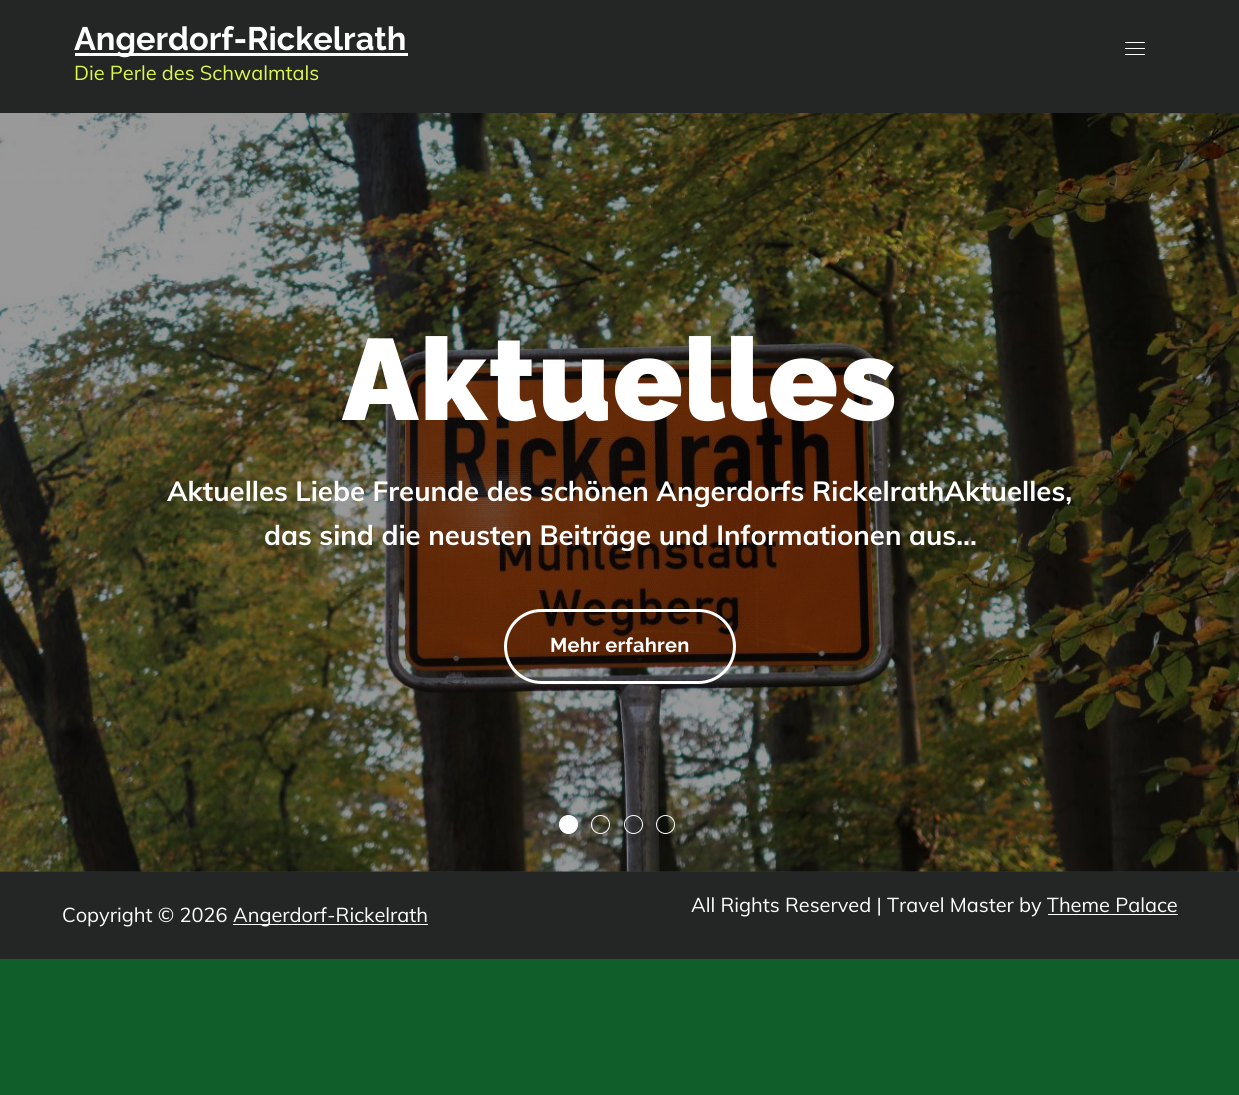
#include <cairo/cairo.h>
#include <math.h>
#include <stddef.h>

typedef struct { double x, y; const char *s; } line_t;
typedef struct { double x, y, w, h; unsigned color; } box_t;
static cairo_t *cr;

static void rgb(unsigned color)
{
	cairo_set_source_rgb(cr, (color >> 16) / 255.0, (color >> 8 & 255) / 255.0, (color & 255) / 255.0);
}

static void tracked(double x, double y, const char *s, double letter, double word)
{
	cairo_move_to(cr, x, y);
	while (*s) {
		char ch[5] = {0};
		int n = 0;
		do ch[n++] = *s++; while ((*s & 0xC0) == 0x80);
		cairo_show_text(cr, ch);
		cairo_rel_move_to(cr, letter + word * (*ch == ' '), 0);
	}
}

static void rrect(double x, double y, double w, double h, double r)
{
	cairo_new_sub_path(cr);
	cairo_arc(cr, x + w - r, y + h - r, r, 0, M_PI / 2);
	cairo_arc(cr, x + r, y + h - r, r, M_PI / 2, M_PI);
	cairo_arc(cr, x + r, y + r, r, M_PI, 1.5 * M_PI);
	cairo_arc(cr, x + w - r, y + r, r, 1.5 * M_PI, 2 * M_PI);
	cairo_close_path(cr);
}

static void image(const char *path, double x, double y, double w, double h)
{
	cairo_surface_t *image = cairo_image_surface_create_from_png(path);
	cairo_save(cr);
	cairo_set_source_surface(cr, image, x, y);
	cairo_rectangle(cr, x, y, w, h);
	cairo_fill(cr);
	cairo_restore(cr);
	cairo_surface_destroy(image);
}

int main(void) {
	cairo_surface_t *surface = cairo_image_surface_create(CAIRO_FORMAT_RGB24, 1239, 1095);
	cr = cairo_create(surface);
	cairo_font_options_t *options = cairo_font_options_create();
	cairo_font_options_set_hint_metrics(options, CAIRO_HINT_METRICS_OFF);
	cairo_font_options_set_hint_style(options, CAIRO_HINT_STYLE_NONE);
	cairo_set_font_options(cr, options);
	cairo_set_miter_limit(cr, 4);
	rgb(0x105e2a);
	cairo_paint(cr);
	{
		static const box_t items[] = {
			{0, 0, 1239, 113, 0x242625},
			{75, 53, 333, 3, 0xffffff},
			{1125, 42, 20, 1, 0xffffff},
			{1125, 48, 20, 1, 0xffffff},
			{1125, 54, 20, 1, 0xffffff},
			{0, 871, 1239, 88, 0x242625},
		};
		for (size_t i = 0; i < sizeof items / sizeof *items; i++) {
			rgb(items[i].color);
			cairo_rectangle(cr, items[i].x, items[i].y, items[i].w, items[i].h);
			cairo_fill(cr);
		}
	}
	image("img/1.png", 0, 113, 1239, 759);
	rrect(505.5, 610.5, 229, 72, 36);
	rgb(0xffffff);
	cairo_set_line_width(cr, 3);
	cairo_stroke(cr);
	cairo_arc(cr, 568.5, 824.5, 9, 0, 2 * M_PI);
	cairo_fill_preserve(cr);
	cairo_set_line_width(cr, 1);
	cairo_stroke(cr);
	cairo_arc(cr, 600.5, 824.5, 9, 0, 2 * M_PI);
	cairo_stroke(cr);
	cairo_arc(cr, 633.5, 824.5, 9, 0, 2 * M_PI);
	cairo_stroke(cr);
	cairo_arc(cr, 665.5, 824.5, 9, 0, 2 * M_PI);
	cairo_stroke(cr);
	cairo_rectangle(cr, 233, 924, 195, 1);
	cairo_fill(cr);
	cairo_rectangle(cr, 1048, 914, 130, 1);
	cairo_fill(cr);
	cairo_select_font_face(cr, "Raleway", CAIRO_FONT_SLANT_NORMAL, CAIRO_FONT_WEIGHT_BOLD);
	cairo_set_font_size(cr, 32.5);
	cairo_move_to(cr, 74, 50);
	cairo_show_text(cr, "Angerdorf-Rickelrath");
	cairo_select_font_face(cr, "Muli", CAIRO_FONT_SLANT_NORMAL, CAIRO_FONT_WEIGHT_NORMAL);
	cairo_set_font_size(cr, 20);
	rgb(0xdaf94d);
	cairo_move_to(cr, 74, 80);
	cairo_show_text(cr, "Die Perle des Schwalmtals");
	cairo_select_font_face(cr, "Raleway Black", CAIRO_FONT_SLANT_NORMAL, CAIRO_FONT_WEIGHT_NORMAL);
	cairo_set_font_size(cr, 115);
	rgb(0xffffff);
	tracked(342, 420, "Aktuelles", 1.25, 0);
	cairo_select_font_face(cr, "Muli", CAIRO_FONT_SLANT_NORMAL, CAIRO_FONT_WEIGHT_BOLD);
	cairo_set_font_size(cr, 27.5);
	cairo_move_to(cr, 167, 501);
	cairo_show_text(cr, "Aktuelles Liebe Freunde des schönen Angerdorfs RickelrathAktuelles,");
	cairo_move_to(cr, 264, 545);
	cairo_show_text(cr, "das sind die neusten Beiträge und Informationen aus...");
	cairo_select_font_face(cr, "Raleway", CAIRO_FONT_SLANT_NORMAL, CAIRO_FONT_WEIGHT_BOLD);
	cairo_set_font_size(cr, 20);
	tracked(550, 652, "Mehr erfahren", 0.25, 0);
	cairo_select_font_face(cr, "Muli", CAIRO_FONT_SLANT_NORMAL, CAIRO_FONT_WEIGHT_NORMAL);
	{
		static const line_t items[] = {
			{62, 922, "Copyright © 2026"},
			{233, 922, "Angerdorf-Rickelrath"},
			{691, 912, "All Rights Reserved | Travel Master by Theme Palace"},
		};
		for (size_t i = 0; i < sizeof items / sizeof *items; i++) {
			cairo_move_to(cr, items[i].x, items[i].y);
			cairo_show_text(cr, items[i].s);
		}
	}
	cairo_surface_write_to_png(surface, "page.png");
	cairo_font_options_destroy(options);
	cairo_destroy(cr);
	cairo_surface_destroy(surface);
	return 0;
}
